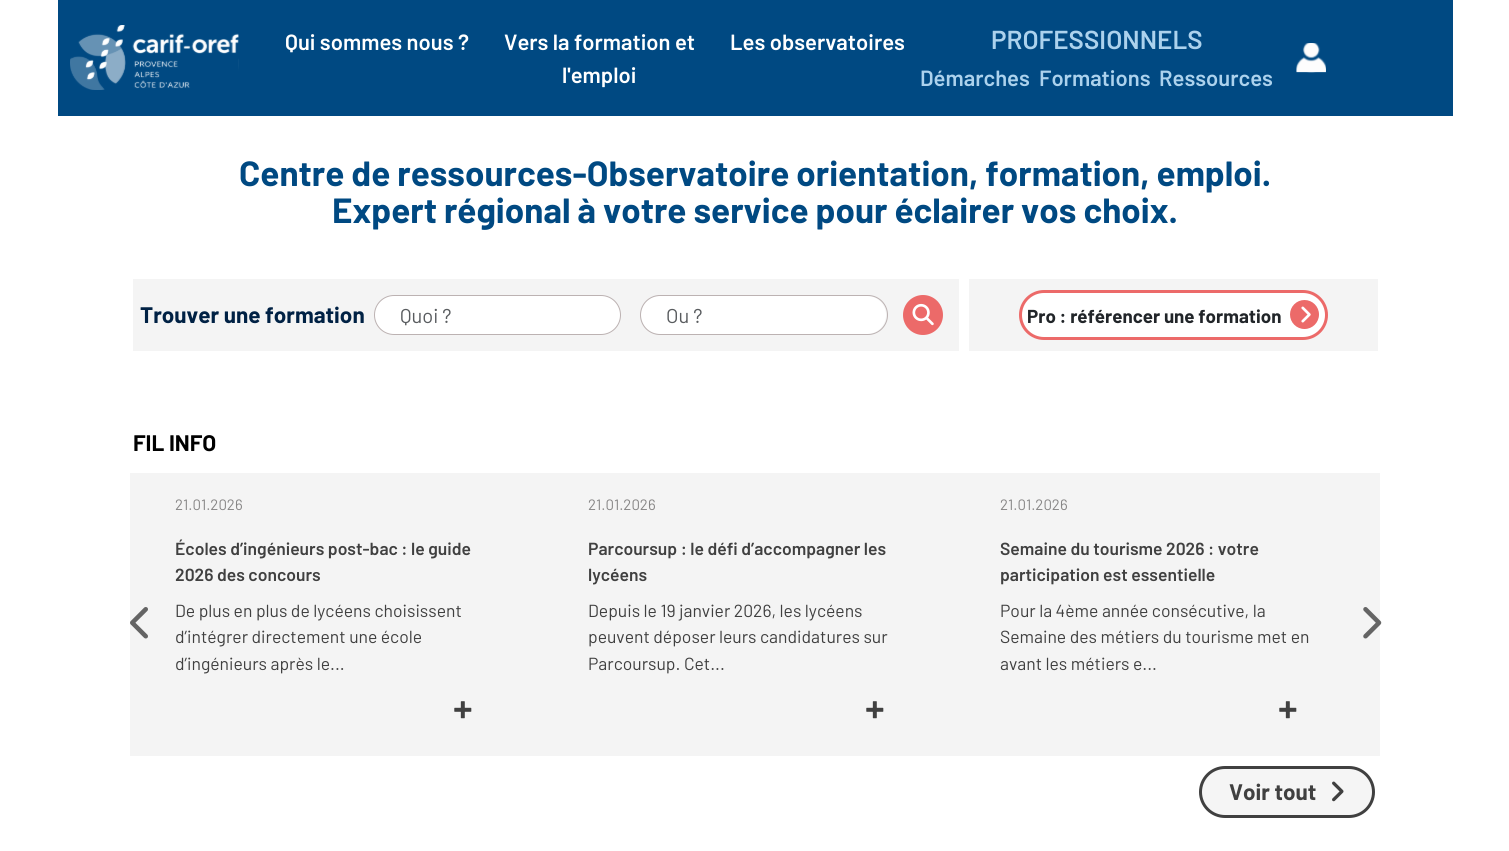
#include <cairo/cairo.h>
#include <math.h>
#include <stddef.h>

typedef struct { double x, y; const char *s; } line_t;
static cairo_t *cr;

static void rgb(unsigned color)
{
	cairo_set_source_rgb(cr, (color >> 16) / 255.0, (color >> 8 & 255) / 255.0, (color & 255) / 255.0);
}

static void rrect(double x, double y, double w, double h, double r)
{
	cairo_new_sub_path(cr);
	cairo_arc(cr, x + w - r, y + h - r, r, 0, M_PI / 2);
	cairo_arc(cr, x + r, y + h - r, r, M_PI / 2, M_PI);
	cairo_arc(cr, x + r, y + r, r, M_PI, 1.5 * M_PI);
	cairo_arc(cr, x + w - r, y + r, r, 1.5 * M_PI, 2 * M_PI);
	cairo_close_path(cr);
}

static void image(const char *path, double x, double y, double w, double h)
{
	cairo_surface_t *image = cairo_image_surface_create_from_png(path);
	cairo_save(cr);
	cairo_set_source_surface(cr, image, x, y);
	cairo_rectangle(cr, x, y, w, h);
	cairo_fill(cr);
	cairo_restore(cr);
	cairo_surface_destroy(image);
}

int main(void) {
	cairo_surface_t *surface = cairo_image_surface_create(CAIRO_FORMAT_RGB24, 1509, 851);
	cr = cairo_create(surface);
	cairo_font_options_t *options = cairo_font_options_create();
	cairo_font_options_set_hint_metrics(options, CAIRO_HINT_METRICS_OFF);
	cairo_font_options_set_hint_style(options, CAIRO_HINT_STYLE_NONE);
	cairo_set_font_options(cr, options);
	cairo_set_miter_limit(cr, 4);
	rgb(0xffffff);
	cairo_paint(cr);
	rgb(0x004982);
	cairo_rectangle(cr, 58, 0, 1395, 116);
	cairo_fill(cr);
	image("img/1.png", 70, 25, 169, 65);
	image("img/2.png", 1296, 43, 30, 30);
	rgb(0xf4f4f4);
	cairo_rectangle(cr, 133, 279, 826, 72);
	cairo_fill(cr);
	rgb(0xffffff);
	rrect(374.5, 295.5, 246, 39, 19.5);
	cairo_fill_preserve(cr);
	rgb(0xbcb2b2);
	cairo_set_line_width(cr, 1);
	cairo_stroke(cr);
	rgb(0xffffff);
	rrect(641, 296, 245, 38, 19);
	cairo_fill(cr);
	rrect(640.5, 295.5, 247, 39, 19.5);
	rgb(0xbcb2b2);
	cairo_stroke(cr);
	rgb(0xec6a69);
	cairo_arc(cr, 923, 315, 20, 0, 2 * M_PI);
	cairo_fill(cr);
	image("img/3.png", 912, 303, 22, 23);
	rgb(0xf4f4f4);
	cairo_rectangle(cr, 969, 279, 409, 72);
	cairo_fill(cr);
	rgb(0xffffff);
	rrect(1020.5, 291.5, 306, 47, 23.5);
	cairo_fill_preserve(cr);
	rgb(0xec6a69);
	cairo_set_line_width(cr, 3);
	cairo_stroke(cr);
	cairo_arc(cr, 1304.5, 314.5, 14.5, 0, 2 * M_PI);
	cairo_fill(cr);
	image("img/4.png", 1301, 306, 10, 17);
	rgb(0xf4f4f4);
	cairo_rectangle(cr, 130, 473, 1250, 283);
	cairo_fill(cr);
	image("img/5.png", 130, 607, 18, 32);
	image("img/6.png", 1363, 607, 19, 32);
	rgb(0xf5f5f5);
	rrect(1200.5, 767.5, 173, 49, 24.5);
	cairo_fill_preserve(cr);
	rgb(0x404040);
	cairo_stroke(cr);
	image("img/7.png", 1332, 781, 12, 21);
	cairo_select_font_face(cr, "Barlow SemiBold", CAIRO_FONT_SLANT_NORMAL, CAIRO_FONT_WEIGHT_NORMAL);
	cairo_set_font_size(cr, 22);
	rgb(0xffffff);
	{
		static const line_t items[] = {
			{285, 50, "Qui sommes nous ?"},
			{504, 50, "Vers la formation et"},
			{562, 83, "l'emploi"},
			{730, 50, "Les observatoires"},
		};
		for (size_t i = 0; i < sizeof items / sizeof *items; i++) {
			cairo_move_to(cr, items[i].x, items[i].y);
			cairo_show_text(cr, items[i].s);
		}
	}
	cairo_set_font_size(cr, 26);
	rgb(0xacd2ed);
	cairo_move_to(cr, 991, 49);
	cairo_show_text(cr, "PROFESSIONNELS");
	cairo_set_font_size(cr, 22);
	{
		static const line_t items[] = {
			{920, 86, "Démarches"},
			{1039, 86, "Formations"},
			{1159, 86, "Ressources"},
		};
		for (size_t i = 0; i < sizeof items / sizeof *items; i++) {
			cairo_move_to(cr, items[i].x, items[i].y);
			cairo_show_text(cr, items[i].s);
		}
	}
	cairo_select_font_face(cr, "Barlow", CAIRO_FONT_SLANT_NORMAL, CAIRO_FONT_WEIGHT_BOLD);
	cairo_set_font_size(cr, 35);
	rgb(0x004982);
	cairo_move_to(cr, 239, 186);
	cairo_show_text(cr, "Centre de ressources-Observatoire orientation, formation, emploi.");
	cairo_move_to(cr, 332, 223);
	cairo_show_text(cr, "Expert régional à votre service pour éclairer vos choix.");
	cairo_set_font_size(cr, 22.5);
	rgb(0x002144);
	cairo_move_to(cr, 140, 323);
	cairo_show_text(cr, "Trouver une formation");
	cairo_select_font_face(cr, "Barlow", CAIRO_FONT_SLANT_NORMAL, CAIRO_FONT_WEIGHT_NORMAL);
	cairo_set_font_size(cr, 20);
	rgb(0x595c5f);
	cairo_move_to(cr, 400, 323);
	cairo_show_text(cr, "Quoi ?");
	cairo_move_to(cr, 666, 323);
	cairo_show_text(cr, "Ou ?");
	cairo_select_font_face(cr, "Barlow", CAIRO_FONT_SLANT_NORMAL, CAIRO_FONT_WEIGHT_BOLD);
	cairo_set_font_size(cr, 18.75);
	rgb(0x212529);
	cairo_move_to(cr, 1027, 323);
	cairo_show_text(cr, "Pro : référencer une formation");
	cairo_set_font_size(cr, 22.5);
	rgb(0x000000);
	cairo_move_to(cr, 133, 451);
	cairo_show_text(cr, "FIL INFO");
	cairo_select_font_face(cr, "Barlow", CAIRO_FONT_SLANT_NORMAL, CAIRO_FONT_WEIGHT_NORMAL);
	cairo_set_font_size(cr, 15);
	rgb(0x878686);
	cairo_move_to(cr, 175, 510);
	cairo_show_text(cr, "21.01.2026");
	cairo_select_font_face(cr, "Barlow SemiBold", CAIRO_FONT_SLANT_NORMAL, CAIRO_FONT_WEIGHT_NORMAL);
	cairo_set_font_size(cr, 17.5);
	rgb(0x404040);
	cairo_move_to(cr, 175, 555);
	cairo_show_text(cr, "Écoles d’ingénieurs post-bac : le guide");
	cairo_move_to(cr, 175, 581);
	cairo_show_text(cr, "2026 des concours");
	cairo_select_font_face(cr, "Barlow", CAIRO_FONT_SLANT_NORMAL, CAIRO_FONT_WEIGHT_NORMAL);
	{
		static const line_t items[] = {
			{175, 617, "De plus en plus de lycéens choisissent"},
			{175, 643, "d’intégrer directement une école"},
			{175, 670, "d’ingénieurs après le..."},
		};
		for (size_t i = 0; i < sizeof items / sizeof *items; i++) {
			cairo_move_to(cr, items[i].x, items[i].y);
			cairo_show_text(cr, items[i].s);
		}
	}
	cairo_select_font_face(cr, "Barlow SemiBold", CAIRO_FONT_SLANT_NORMAL, CAIRO_FONT_WEIGHT_NORMAL);
	cairo_set_font_size(cr, 40);
	cairo_move_to(cr, 453, 722);
	cairo_show_text(cr, "+");
	cairo_select_font_face(cr, "Barlow", CAIRO_FONT_SLANT_NORMAL, CAIRO_FONT_WEIGHT_NORMAL);
	cairo_set_font_size(cr, 15);
	rgb(0x878686);
	cairo_move_to(cr, 588, 510);
	cairo_show_text(cr, "21.01.2026");
	cairo_select_font_face(cr, "Barlow SemiBold", CAIRO_FONT_SLANT_NORMAL, CAIRO_FONT_WEIGHT_NORMAL);
	cairo_set_font_size(cr, 17.5);
	rgb(0x404040);
	cairo_move_to(cr, 588, 555);
	cairo_show_text(cr, "Parcoursup : le défi d’accompagner les");
	cairo_move_to(cr, 588, 581);
	cairo_show_text(cr, "lycéens");
	cairo_select_font_face(cr, "Barlow", CAIRO_FONT_SLANT_NORMAL, CAIRO_FONT_WEIGHT_NORMAL);
	{
		static const line_t items[] = {
			{588, 617, "Depuis le 19 janvier 2026, les lycéens"},
			{588, 643, "peuvent déposer leurs candidatures sur"},
			{588, 670, "Parcoursup. Cet..."},
		};
		for (size_t i = 0; i < sizeof items / sizeof *items; i++) {
			cairo_move_to(cr, items[i].x, items[i].y);
			cairo_show_text(cr, items[i].s);
		}
	}
	cairo_select_font_face(cr, "Barlow SemiBold", CAIRO_FONT_SLANT_NORMAL, CAIRO_FONT_WEIGHT_NORMAL);
	cairo_set_font_size(cr, 40);
	cairo_move_to(cr, 865, 722);
	cairo_show_text(cr, "+");
	cairo_select_font_face(cr, "Barlow", CAIRO_FONT_SLANT_NORMAL, CAIRO_FONT_WEIGHT_NORMAL);
	cairo_set_font_size(cr, 15);
	rgb(0x878686);
	cairo_move_to(cr, 1000, 510);
	cairo_show_text(cr, "21.01.2026");
	cairo_select_font_face(cr, "Barlow SemiBold", CAIRO_FONT_SLANT_NORMAL, CAIRO_FONT_WEIGHT_NORMAL);
	cairo_set_font_size(cr, 17.5);
	rgb(0x404040);
	cairo_move_to(cr, 1000, 555);
	cairo_show_text(cr, "Semaine du tourisme 2026 : votre");
	cairo_move_to(cr, 1000, 581);
	cairo_show_text(cr, "participation est essentielle");
	cairo_select_font_face(cr, "Barlow", CAIRO_FONT_SLANT_NORMAL, CAIRO_FONT_WEIGHT_NORMAL);
	{
		static const line_t items[] = {
			{1000, 617, "Pour la 4ème année consécutive, la"},
			{1000, 643, "Semaine des métiers du tourisme met en"},
			{1000, 670, "avant les métiers e..."},
		};
		for (size_t i = 0; i < sizeof items / sizeof *items; i++) {
			cairo_move_to(cr, items[i].x, items[i].y);
			cairo_show_text(cr, items[i].s);
		}
	}
	cairo_select_font_face(cr, "Barlow SemiBold", CAIRO_FONT_SLANT_NORMAL, CAIRO_FONT_WEIGHT_NORMAL);
	cairo_set_font_size(cr, 40);
	cairo_move_to(cr, 1278, 722);
	cairo_show_text(cr, "+");
	cairo_select_font_face(cr, "Barlow", CAIRO_FONT_SLANT_NORMAL, CAIRO_FONT_WEIGHT_BOLD);
	cairo_set_font_size(cr, 22.5);
	cairo_move_to(cr, 1229, 800);
	cairo_show_text(cr, "Voir tout");
	cairo_surface_write_to_png(surface, "page.png");
	cairo_font_options_destroy(options);
	cairo_destroy(cr);
	cairo_surface_destroy(surface);
	return 0;
}
